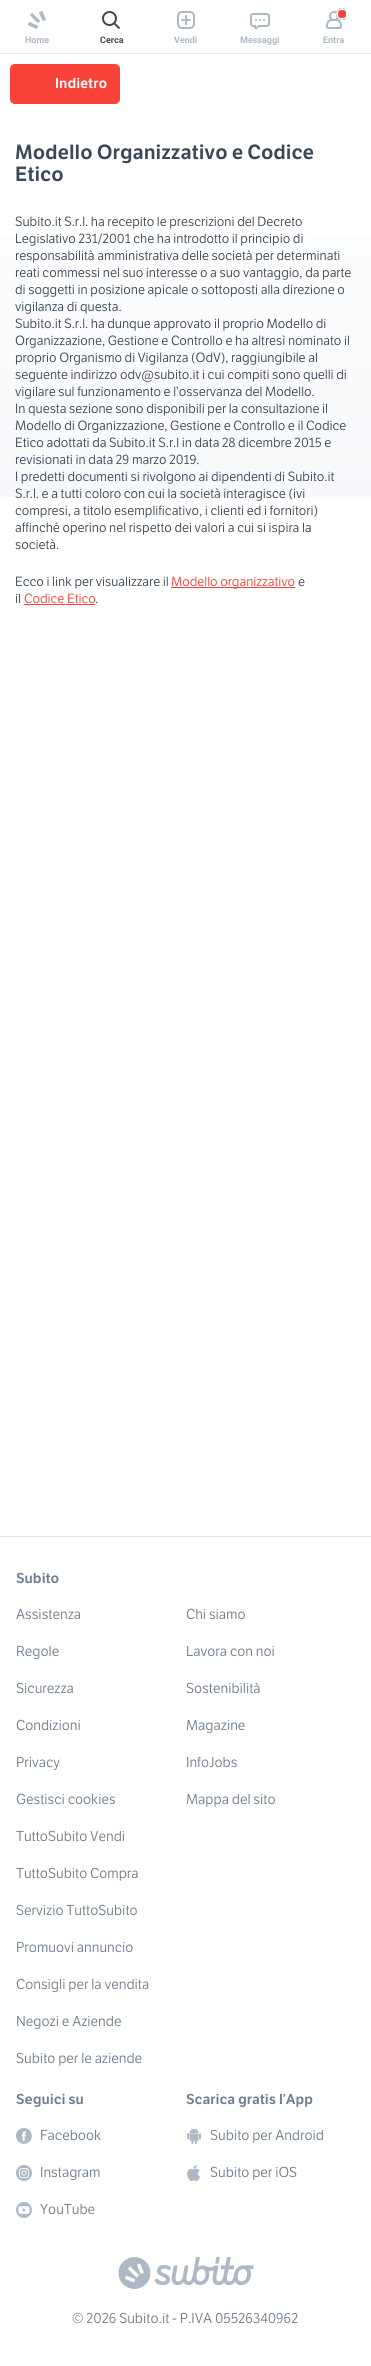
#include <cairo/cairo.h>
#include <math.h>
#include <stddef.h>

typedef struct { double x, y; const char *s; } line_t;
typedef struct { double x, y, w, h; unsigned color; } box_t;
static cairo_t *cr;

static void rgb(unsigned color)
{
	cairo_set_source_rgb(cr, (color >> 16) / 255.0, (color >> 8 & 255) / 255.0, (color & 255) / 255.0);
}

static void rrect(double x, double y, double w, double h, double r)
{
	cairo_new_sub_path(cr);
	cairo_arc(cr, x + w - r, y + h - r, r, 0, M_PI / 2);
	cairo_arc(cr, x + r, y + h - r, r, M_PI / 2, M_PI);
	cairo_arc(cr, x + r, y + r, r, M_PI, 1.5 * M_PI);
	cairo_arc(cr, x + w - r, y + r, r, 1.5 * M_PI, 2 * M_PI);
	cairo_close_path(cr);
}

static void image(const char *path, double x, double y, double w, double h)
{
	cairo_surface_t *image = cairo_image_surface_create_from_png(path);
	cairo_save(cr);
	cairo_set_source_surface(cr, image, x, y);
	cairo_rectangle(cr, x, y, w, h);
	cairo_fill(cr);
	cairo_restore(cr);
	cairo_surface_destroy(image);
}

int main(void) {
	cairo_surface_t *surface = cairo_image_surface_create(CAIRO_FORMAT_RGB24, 371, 2366);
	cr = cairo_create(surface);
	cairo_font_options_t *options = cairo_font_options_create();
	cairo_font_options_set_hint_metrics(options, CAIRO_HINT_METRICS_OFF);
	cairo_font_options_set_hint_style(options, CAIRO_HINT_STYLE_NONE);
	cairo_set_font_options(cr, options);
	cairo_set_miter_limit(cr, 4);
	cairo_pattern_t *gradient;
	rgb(0xffffff);
	cairo_paint(cr);
	gradient = cairo_pattern_create_linear(185, 0, 186, 2366);
	cairo_pattern_add_color_stop_rgba(gradient, 0, 1, 1, 1, 1);
	cairo_pattern_add_color_stop_rgba(gradient, 0.05, 1, 1, 1, 1);
	cairo_pattern_add_color_stop_rgba(gradient, 0.21, 0.969, 0.973, 0.984, 1);
	cairo_pattern_add_color_stop_rgba(gradient, 0.21, 1, 1, 1, 1);
	cairo_set_source(cr, gradient);
	cairo_pattern_destroy(gradient);
	cairo_rectangle(cr, 0, 237, 371, 260);
	cairo_fill(cr);
	rgb(0xdfe3ed);
	cairo_rectangle(cr, 0, 53, 371, 1);
	cairo_fill(cr);
	image("img/1.png", 28, 11, 18, 18);
	image("img/2.png", 102, 11, 18, 18);
	image("img/3.png", 177, 11, 18, 18);
	image("img/4.png", 250, 13, 20, 16);
	image("img/5.png", 326, 8, 20, 21);
	rgb(0xf9423a);
	rrect(10.5, 64.5, 109, 39, 4.5);
	cairo_fill_preserve(cr);
	cairo_set_line_width(cr, 1);
	cairo_stroke(cr);
	{
		static const box_t items[] = {
			{171, 587, 124, 1, 0xf9423a},
			{24, 604, 71, 1, 0xf9423a},
			{0, 1536, 371, 1, 0xdfe3ed},
		};
		for (size_t i = 0; i < sizeof items / sizeof *items; i++) {
			rgb(items[i].color);
			cairo_rectangle(cr, items[i].x, items[i].y, items[i].w, items[i].h);
			cairo_fill(cr);
		}
	}
	image("img/6.png", 16, 2128, 16, 16);
	image("img/7.png", 16, 2165, 16, 16);
	image("img/8.png", 16, 2202, 16, 16);
	image("img/9.png", 187, 2128, 14, 16);
	image("img/10.png", 187, 2165, 13, 16);
	image("img/11.png", 118, 2257, 136, 32);
	cairo_select_font_face(cr, "Roboto", CAIRO_FONT_SLANT_NORMAL, CAIRO_FONT_WEIGHT_BOLD);
	cairo_set_font_size(cr, 9);
	rgb(0xaeb9c6);
	cairo_move_to(cr, 25, 43);
	cairo_show_text(cr, "Home");
	rgb(0x3c4858);
	cairo_move_to(cr, 100, 43);
	cairo_show_text(cr, "Cerca");
	rgb(0xaeb9c6);
	{
		static const line_t items[] = {
			{174, 43, "Vendi"},
			{240, 43, "Messaggi"},
			{323, 43, "Entra"},
		};
		for (size_t i = 0; i < sizeof items / sizeof *items; i++) {
			cairo_move_to(cr, items[i].x, items[i].y);
			cairo_show_text(cr, items[i].s);
		}
	}
	cairo_select_font_face(cr, "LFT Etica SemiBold", CAIRO_FONT_SLANT_NORMAL, CAIRO_FONT_WEIGHT_NORMAL);
	cairo_set_font_size(cr, 14);
	rgb(0xffffff);
	cairo_move_to(cr, 55, 88);
	cairo_show_text(cr, "Indietro");
	cairo_set_font_size(cr, 20);
	rgb(0x3c4858);
	cairo_move_to(cr, 15, 159);
	cairo_show_text(cr, "Modello Organizzativo e Codice");
	cairo_move_to(cr, 15, 181);
	cairo_show_text(cr, "Etico");
	cairo_select_font_face(cr, "LFT Etica", CAIRO_FONT_SLANT_NORMAL, CAIRO_FONT_WEIGHT_NORMAL);
	cairo_set_font_size(cr, 13);
	{
		static const line_t items[] = {
			{15, 226, "Subito.it S.r.l. ha recepito le prescrizioni del Decreto"},
			{15, 243, "Legislativo 231/2001 che ha introdotto il principio di"},
			{15, 260, "responsabilità amministrativa delle società per determinati"},
			{15, 277, "reati commessi nel suo interesse o a suo vantaggio, da parte"},
			{15, 294, "di soggetti in posizione apicale o sottoposti alla direzione o"},
			{15, 311, "vigilanza di questa."},
			{15, 328, "Subito.it S.r.l. ha dunque approvato il proprio Modello di"},
			{15, 345, "Organizzazione, Gestione e Controllo e ha altresì nominato il"},
			{15, 362, "proprio Organismo di Vigilanza (OdV), raggiungibile al"},
			{15, 379, "seguente indirizzo odv@subito.it i cui compiti sono quelli di"},
			{15, 396, "vigilare sul funzionamento e l’osservanza del Modello."},
			{15, 413, "In questa sezione sono disponibili per la consultazione il"},
			{15, 430, "Modello di Organizzazione, Gestione e Controllo e il Codice"},
			{15, 447, "Etico adottati da Subito.it S.r.l in data 28 dicembre 2015 e"},
			{15, 464, "revisionati in data 29 marzo 2019."},
			{15, 481, "I predetti documenti si rivolgono ai dipendenti di Subito.it"},
			{15, 498, "S.r.l. e a tutti coloro con cui la società interagisce (ivi"},
			{15, 515, "compresi, a titolo esemplificativo, i clienti ed i fornitori)"},
			{15, 532, "affinché operino nel rispetto dei valori a cui si ispira la"},
			{15, 549, "società."},
			{15, 586, "Ecco i link per visualizzare il"},
		};
		for (size_t i = 0; i < sizeof items / sizeof *items; i++) {
			cairo_move_to(cr, items[i].x, items[i].y);
			cairo_show_text(cr, items[i].s);
		}
	}
	rgb(0xf9423a);
	cairo_move_to(cr, 171, 586);
	cairo_show_text(cr, "Modello organizzativo");
	rgb(0x3c4858);
	cairo_move_to(cr, 298, 586);
	cairo_show_text(cr, "e");
	cairo_move_to(cr, 15, 603);
	cairo_show_text(cr, "il");
	rgb(0xf9423a);
	cairo_move_to(cr, 24, 603);
	cairo_show_text(cr, "Codice Etico");
	rgb(0x3c4858);
	cairo_move_to(cr, 95, 603);
	cairo_show_text(cr, ".");
	cairo_select_font_face(cr, "LFT Etica SemiBold", CAIRO_FONT_SLANT_NORMAL, CAIRO_FONT_WEIGHT_NORMAL);
	cairo_set_font_size(cr, 14);
	rgb(0x717e8f);
	cairo_move_to(cr, 16, 1583);
	cairo_show_text(cr, "Subito");
	cairo_select_font_face(cr, "LFT Etica", CAIRO_FONT_SLANT_NORMAL, CAIRO_FONT_WEIGHT_NORMAL);
	{
		static const line_t items[] = {
			{16, 1619, "Assistenza"},
			{16, 1656, "Regole"},
			{16, 1693, "Sicurezza"},
			{16, 1730, "Condizioni"},
			{16, 1767, "Privacy"},
			{16, 1804, "Gestisci cookies"},
			{16, 1841, "TuttoSubito Vendi"},
			{16, 1878, "TuttoSubito Compra"},
			{16, 1915, "Servizio TuttoSubito"},
			{16, 1952, "Promuovi annuncio"},
			{16, 1989, "Consigli per la vendita"},
			{16, 2026, "Negozi e Aziende"},
			{16, 2063, "Subito per le aziende"},
			{186, 1619, "Chi siamo"},
			{186, 1656, "Lavora con noi"},
			{186, 1693, "Sostenibilità"},
			{186, 1730, "Magazine"},
			{186, 1767, "InfoJobs"},
			{186, 1804, "Mappa del sito"},
		};
		for (size_t i = 0; i < sizeof items / sizeof *items; i++) {
			cairo_move_to(cr, items[i].x, items[i].y);
			cairo_show_text(cr, items[i].s);
		}
	}
	cairo_select_font_face(cr, "LFT Etica SemiBold", CAIRO_FONT_SLANT_NORMAL, CAIRO_FONT_WEIGHT_NORMAL);
	cairo_move_to(cr, 16, 2104);
	cairo_show_text(cr, "Seguici su");
	cairo_select_font_face(cr, "LFT Etica", CAIRO_FONT_SLANT_NORMAL, CAIRO_FONT_WEIGHT_NORMAL);
	{
		static const line_t items[] = {
			{40, 2140, "Facebook"},
			{40, 2177, "Instagram"},
			{40, 2214, "YouTube"},
		};
		for (size_t i = 0; i < sizeof items / sizeof *items; i++) {
			cairo_move_to(cr, items[i].x, items[i].y);
			cairo_show_text(cr, items[i].s);
		}
	}
	cairo_select_font_face(cr, "LFT Etica SemiBold", CAIRO_FONT_SLANT_NORMAL, CAIRO_FONT_WEIGHT_NORMAL);
	cairo_move_to(cr, 186, 2104);
	cairo_show_text(cr, "Scarica gratis l’App");
	cairo_select_font_face(cr, "LFT Etica", CAIRO_FONT_SLANT_NORMAL, CAIRO_FONT_WEIGHT_NORMAL);
	{
		static const line_t items[] = {
			{210, 2140, "Subito per Android"},
			{210, 2177, "Subito per iOS"},
			{72, 2323, "© 2026 Subito.it - P.IVA 05526340962"},
		};
		for (size_t i = 0; i < sizeof items / sizeof *items; i++) {
			cairo_move_to(cr, items[i].x, items[i].y);
			cairo_show_text(cr, items[i].s);
		}
	}
	cairo_surface_write_to_png(surface, "page.png");
	cairo_font_options_destroy(options);
	cairo_destroy(cr);
	cairo_surface_destroy(surface);
	return 0;
}
